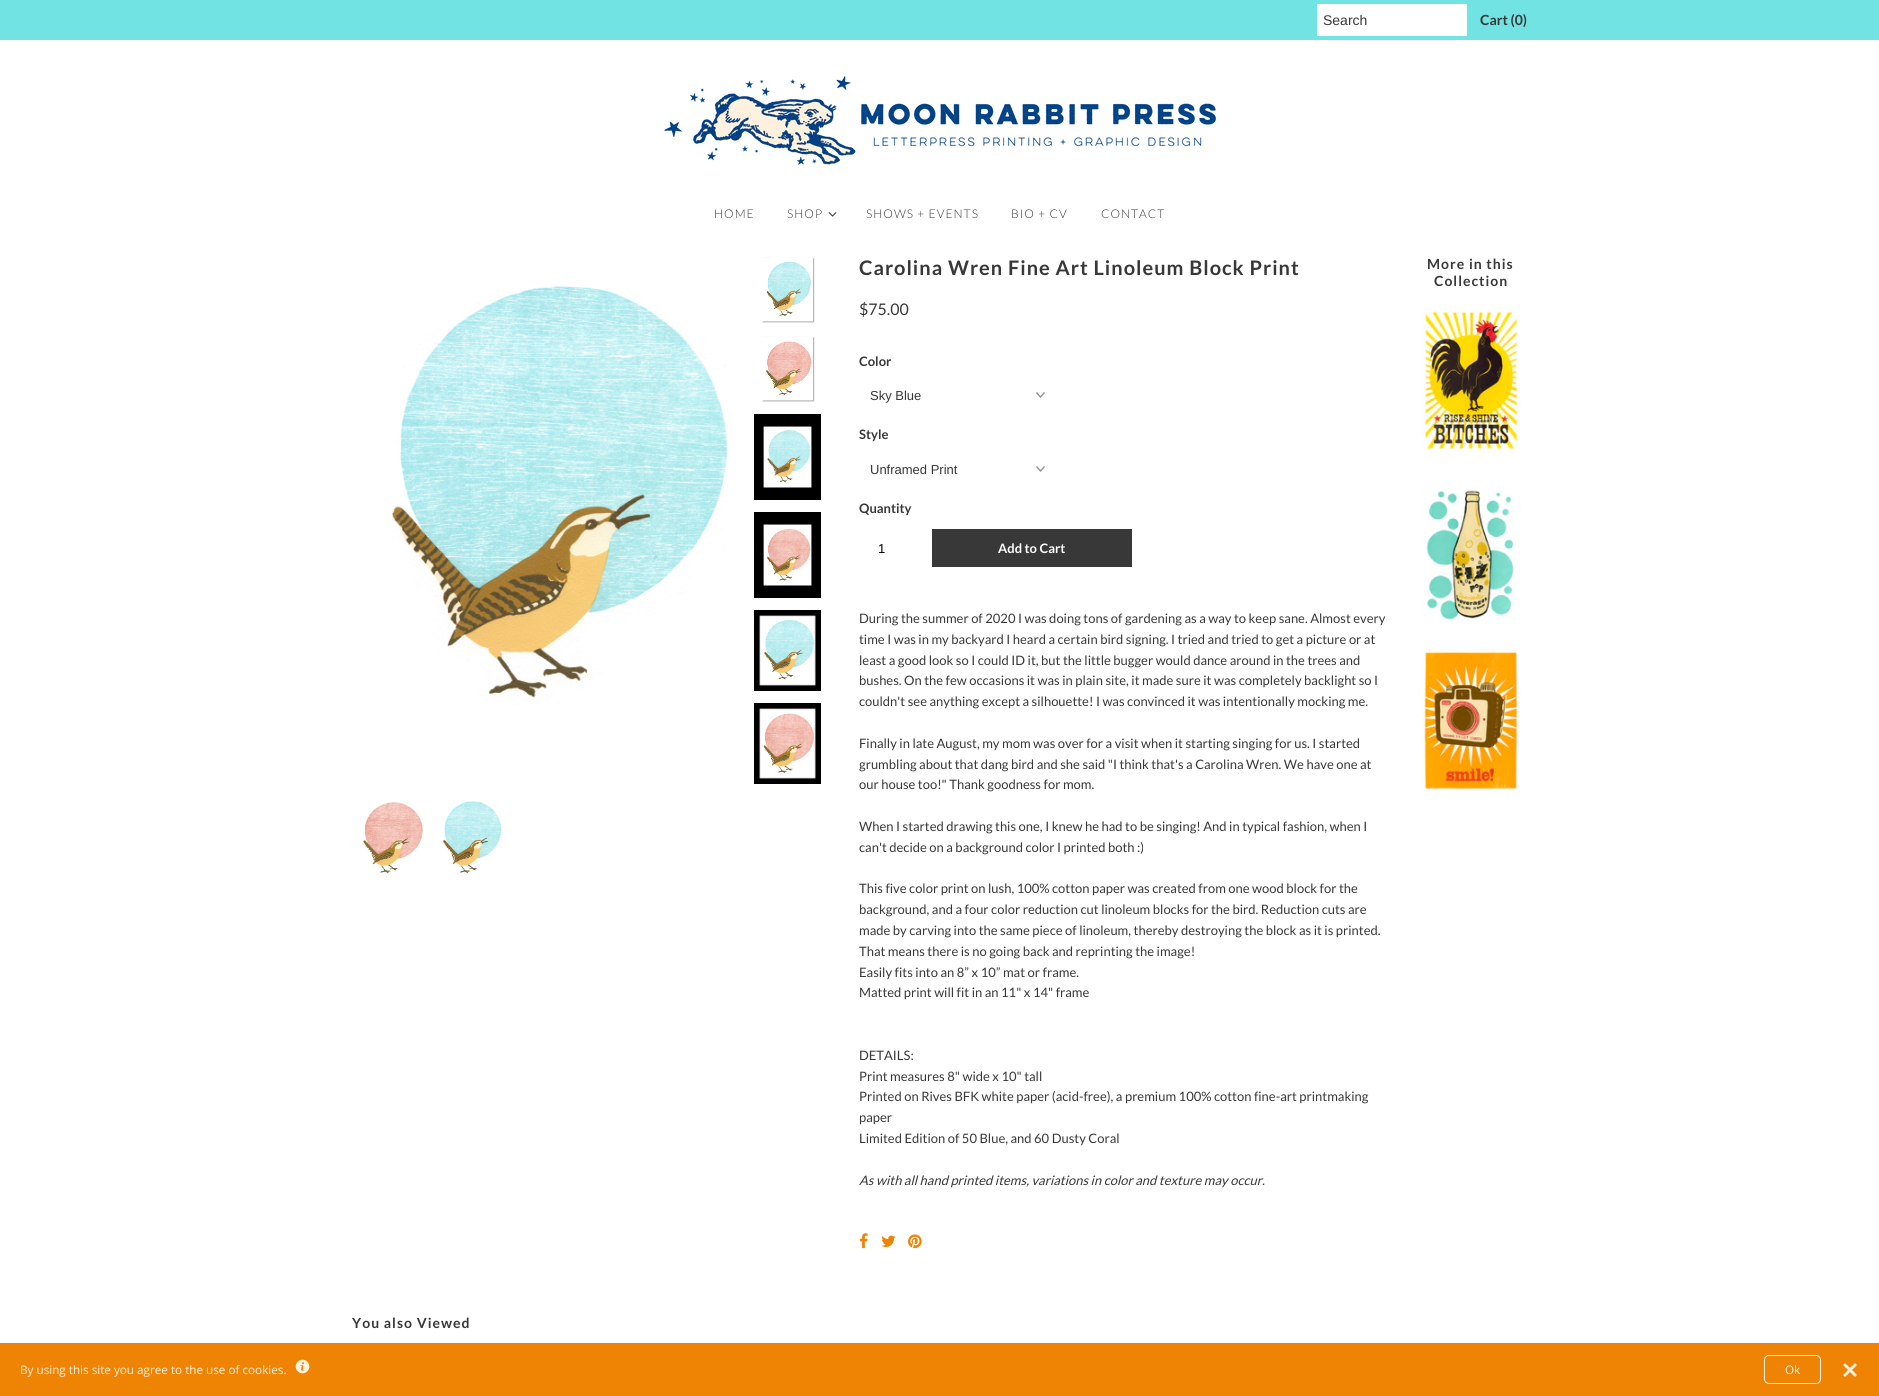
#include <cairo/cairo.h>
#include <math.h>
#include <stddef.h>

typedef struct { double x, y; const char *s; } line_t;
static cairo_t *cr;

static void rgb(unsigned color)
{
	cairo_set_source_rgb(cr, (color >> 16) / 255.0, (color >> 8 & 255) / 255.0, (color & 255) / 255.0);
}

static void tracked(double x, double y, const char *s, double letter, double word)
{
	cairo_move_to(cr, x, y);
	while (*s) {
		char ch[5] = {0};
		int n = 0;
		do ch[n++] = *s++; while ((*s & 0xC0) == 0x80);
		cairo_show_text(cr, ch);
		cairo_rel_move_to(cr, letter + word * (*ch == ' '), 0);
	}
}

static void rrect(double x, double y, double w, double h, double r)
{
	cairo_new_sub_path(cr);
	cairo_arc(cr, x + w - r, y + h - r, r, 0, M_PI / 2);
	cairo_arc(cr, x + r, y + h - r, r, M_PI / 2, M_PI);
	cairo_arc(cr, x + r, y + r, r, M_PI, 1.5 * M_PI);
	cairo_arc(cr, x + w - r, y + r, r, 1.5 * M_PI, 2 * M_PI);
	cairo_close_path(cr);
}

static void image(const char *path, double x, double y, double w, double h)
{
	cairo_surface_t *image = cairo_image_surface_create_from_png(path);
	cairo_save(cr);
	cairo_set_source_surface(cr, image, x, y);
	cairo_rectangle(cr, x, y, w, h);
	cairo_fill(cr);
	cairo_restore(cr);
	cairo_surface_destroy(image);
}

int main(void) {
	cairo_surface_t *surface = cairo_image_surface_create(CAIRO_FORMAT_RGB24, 1879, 1396);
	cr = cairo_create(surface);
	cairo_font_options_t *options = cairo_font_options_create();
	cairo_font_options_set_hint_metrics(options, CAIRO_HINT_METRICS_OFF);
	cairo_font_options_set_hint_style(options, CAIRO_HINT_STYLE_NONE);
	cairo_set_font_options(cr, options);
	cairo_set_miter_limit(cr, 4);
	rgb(0xffffff);
	cairo_paint(cr);
	rgb(0x71e3e3);
	cairo_rectangle(cr, 0, 0, 1879, 40);
	cairo_fill(cr);
	rgb(0xffffff);
	cairo_rectangle(cr, 1317, 4, 150, 32);
	cairo_fill(cr);
	image("img/1.png", 664, 76, 552, 89);
	image("img/2.png", 828, 212, 9, 5);
	image("img/3.png", 392, 286, 336, 419);
	image("img/4.png", 762, 257, 53, 66);
	image("img/5.png", 762, 336, 53, 66);
	image("img/6.png", 754, 414, 67, 86);
	image("img/7.png", 754, 512, 67, 86);
	image("img/8.png", 754, 610, 67, 81);
	image("img/9.png", 754, 703, 67, 81);
	image("img/10.png", 363, 802, 60, 72);
	image("img/11.png", 443, 801, 59, 73);
	image("img/12.png", 1036, 392, 9, 6);
	image("img/12.png", 1036, 466, 9, 6);
	rgb(0x383838);
	cairo_rectangle(cr, 932, 529, 200, 38);
	cairo_fill(cr);
	image("img/13.png", 859, 1233, 9, 16);
	image("img/14.png", 881, 1235, 15, 12);
	image("img/15.png", 908, 1234, 14, 15);
	image("img/16.png", 1422, 309, 98, 144);
	image("img/17.png", 1422, 487, 94, 134);
	image("img/18.png", 1422, 649, 98, 145);
	rgb(0xef8404);
	cairo_rectangle(cr, 0, 1343, 1879, 53);
	cairo_fill(cr);
	image("img/19.png", 295, 1359, 15, 15);
	rrect(1764.5, 1355.5, 56, 28, 4.5);
	rgb(0xfff1de);
	cairo_set_line_width(cr, 1);
	cairo_stroke(cr);
	image("img/20.png", 1843, 1363, 14, 14);
	cairo_select_font_face(cr, "Liberation Sans", CAIRO_FONT_SLANT_NORMAL, CAIRO_FONT_WEIGHT_NORMAL);
	cairo_set_font_size(cr, 14);
	rgb(0x383838);
	cairo_move_to(cr, 1323, 25);
	cairo_show_text(cr, "Search");
	cairo_select_font_face(cr, "Lato", CAIRO_FONT_SLANT_NORMAL, CAIRO_FONT_WEIGHT_BOLD);
	cairo_move_to(cr, 1480, 25);
	cairo_show_text(cr, "Cart (0)");
	cairo_select_font_face(cr, "Lato Light", CAIRO_FONT_SLANT_NORMAL, CAIRO_FONT_WEIGHT_NORMAL);
	cairo_set_font_size(cr, 12);
	{
		static const line_t items[] = {
			{714, 218, "HOME"},
			{787, 218, "SHOP"},
			{866, 218, "SHOWS + EVENTS"},
			{1011, 218, "BIO + CV"},
			{1101, 218, "CONTACT"},
		};
		for (size_t i = 0; i < sizeof items / sizeof *items; i++) {
			tracked(items[i].x, items[i].y, items[i].s, 1, 0);
		}
	}
	cairo_select_font_face(cr, "Lato", CAIRO_FONT_SLANT_NORMAL, CAIRO_FONT_WEIGHT_BOLD);
	cairo_set_font_size(cr, 20);
	tracked(859, 275, "Carolina Wren Fine Art Linoleum Block Print", 1, 0);
	cairo_select_font_face(cr, "Lato", CAIRO_FONT_SLANT_NORMAL, CAIRO_FONT_WEIGHT_NORMAL);
	cairo_set_font_size(cr, 16);
	cairo_move_to(cr, 859, 315);
	cairo_show_text(cr, "$75.00");
	cairo_select_font_face(cr, "Lato", CAIRO_FONT_SLANT_NORMAL, CAIRO_FONT_WEIGHT_BOLD);
	cairo_set_font_size(cr, 13);
	cairo_move_to(cr, 859, 366);
	cairo_show_text(cr, "Color");
	cairo_select_font_face(cr, "Liberation Sans", CAIRO_FONT_SLANT_NORMAL, CAIRO_FONT_WEIGHT_NORMAL);
	cairo_move_to(cr, 870, 400);
	cairo_show_text(cr, "Sky Blue");
	cairo_select_font_face(cr, "Lato", CAIRO_FONT_SLANT_NORMAL, CAIRO_FONT_WEIGHT_BOLD);
	cairo_move_to(cr, 859, 439);
	cairo_show_text(cr, "Style");
	cairo_select_font_face(cr, "Liberation Sans", CAIRO_FONT_SLANT_NORMAL, CAIRO_FONT_WEIGHT_NORMAL);
	cairo_move_to(cr, 870, 474);
	cairo_show_text(cr, "Unframed Print");
	cairo_select_font_face(cr, "Lato", CAIRO_FONT_SLANT_NORMAL, CAIRO_FONT_WEIGHT_BOLD);
	cairo_move_to(cr, 859, 513);
	cairo_show_text(cr, "Quantity");
	cairo_select_font_face(cr, "Liberation Sans", CAIRO_FONT_SLANT_NORMAL, CAIRO_FONT_WEIGHT_NORMAL);
	rgb(0x000000);
	cairo_move_to(cr, 878, 553);
	cairo_show_text(cr, "1");
	cairo_select_font_face(cr, "Lato", CAIRO_FONT_SLANT_NORMAL, CAIRO_FONT_WEIGHT_BOLD);
	rgb(0xffffff);
	cairo_move_to(cr, 998, 553);
	cairo_show_text(cr, "Add to Cart");
	cairo_select_font_face(cr, "Lato", CAIRO_FONT_SLANT_NORMAL, CAIRO_FONT_WEIGHT_NORMAL);
	rgb(0x383838);
	{
		static const line_t items[] = {
			{859, 623, "During the summer of 2020 I was doing tons of gardening as a way to keep sane. Almost every"},
			{859, 644, "time I was in my backyard I heard a certain bird signing. I tried and tried to get a picture or at"},
			{859, 665, "least a good look so I could ID it, but the little bugger would dance around in the trees and"},
			{859, 685, "bushes. On the few occasions it was in plain site, it made sure it was completely backlight so I"},
			{859, 706, "couldn't see anything except a silhouette! I was convinced it was intentionally mocking me."},
			{859, 748, "Finally in late August, my mom was over for a visit when it starting singing for us. I started"},
			{859, 769, "grumbling about that dang bird and she said \"I think that's a Carolina Wren. We have one at"},
			{859, 789, "our house too!\" Thank goodness for mom."},
			{859, 831, "When I started drawing this one, I knew he had to be singing! And in typical fashion, when I"},
			{859, 852, "can't decide on a background color I printed both :)"},
			{859, 893, "This five color print on lush, 100% cotton paper was created from one wood block for the"},
			{859, 914, "background, and a four color reduction cut linoleum blocks for the bird. Reduction cuts are"},
			{859, 935, "made by carving into the same piece of linoleum, thereby destroying the block as it is printed."},
			{859, 956, "That means there is no going back and reprinting the image!"},
			{859, 977, "Easily fits into an 8” x 10” mat or frame."},
			{859, 997, "Matted print will fit in an 11\" x 14\" frame"},
			{859, 1060, "DETAILS:"},
			{859, 1081, "Print measures 8\" wide x 10\" tall"},
			{859, 1101, "Printed on Rives BFK white paper (acid-free), a premium 100% cotton fine-art printmaking"},
			{859, 1122, "paper"},
			{859, 1143, "Limited Edition of 50 Blue, and 60 Dusty Coral"},
		};
		for (size_t i = 0; i < sizeof items / sizeof *items; i++) {
			cairo_move_to(cr, items[i].x, items[i].y);
			cairo_show_text(cr, items[i].s);
		}
	}
	cairo_select_font_face(cr, "Lato", CAIRO_FONT_SLANT_ITALIC, CAIRO_FONT_WEIGHT_NORMAL);
	cairo_move_to(cr, 859, 1185);
	cairo_show_text(cr, "As with all hand printed items, variations in color and texture may occur.");
	cairo_select_font_face(cr, "Lato", CAIRO_FONT_SLANT_NORMAL, CAIRO_FONT_WEIGHT_BOLD);
	cairo_set_font_size(cr, 14);
	{
		static const line_t items[] = {
			{1427, 269, "More in this"},
			{1434, 286, "Collection"},
			{352, 1328, "You also Viewed"},
		};
		for (size_t i = 0; i < sizeof items / sizeof *items; i++) {
			tracked(items[i].x, items[i].y, items[i].s, 1, 0);
		}
	}
	cairo_select_font_face(cr, "Open Sans", CAIRO_FONT_SLANT_NORMAL, CAIRO_FONT_WEIGHT_NORMAL);
	cairo_set_font_size(cr, 11.7);
	rgb(0xfff1de);
	cairo_move_to(cr, 20, 1374);
	cairo_show_text(cr, "By using this site you agree to the use of cookies.");
	cairo_move_to(cr, 1785, 1374);
	cairo_show_text(cr, "Ok");
	cairo_surface_write_to_png(surface, "page.png");
	cairo_font_options_destroy(options);
	cairo_destroy(cr);
	cairo_surface_destroy(surface);
	return 0;
}
